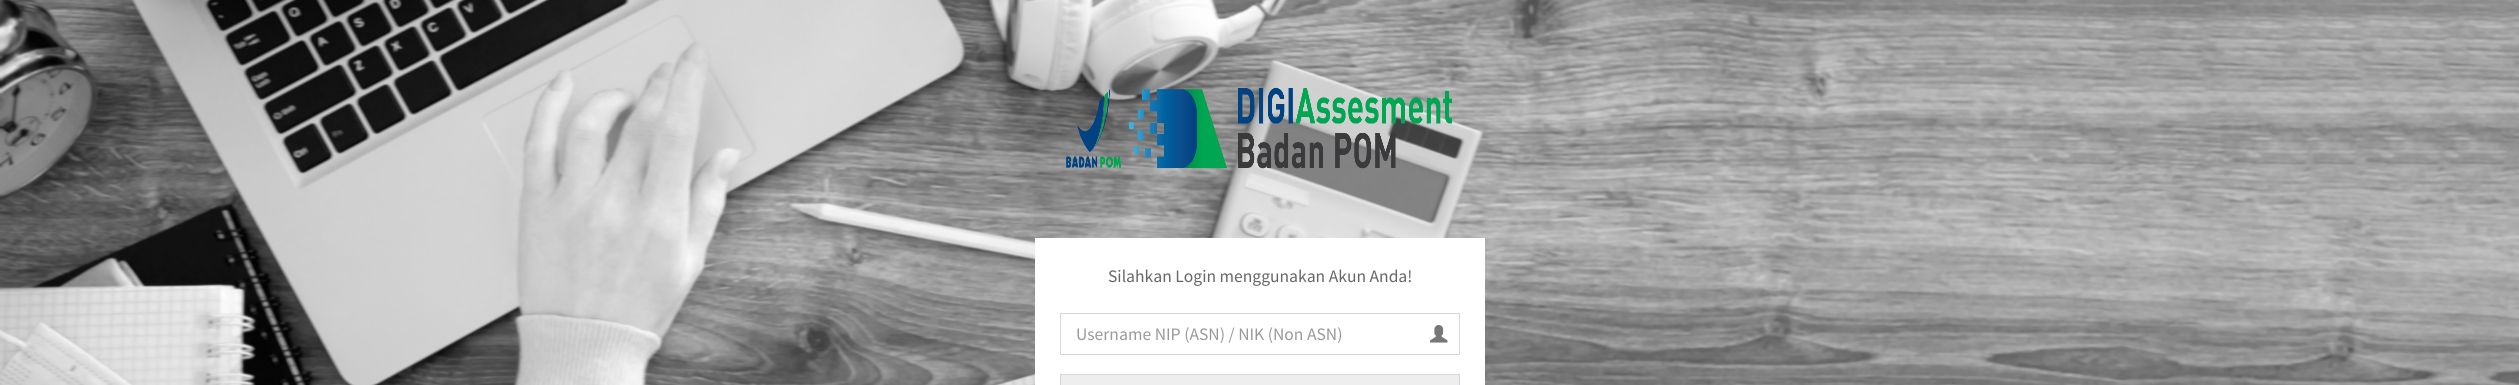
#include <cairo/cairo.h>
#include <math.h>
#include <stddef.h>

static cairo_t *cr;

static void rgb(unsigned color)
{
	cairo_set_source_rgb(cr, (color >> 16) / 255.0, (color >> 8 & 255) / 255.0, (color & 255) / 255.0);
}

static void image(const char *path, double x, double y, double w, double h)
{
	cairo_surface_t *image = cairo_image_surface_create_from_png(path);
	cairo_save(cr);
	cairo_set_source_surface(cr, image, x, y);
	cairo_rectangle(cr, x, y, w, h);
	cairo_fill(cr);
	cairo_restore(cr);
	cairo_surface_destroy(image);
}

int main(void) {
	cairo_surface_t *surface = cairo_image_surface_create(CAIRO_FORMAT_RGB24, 2519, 385);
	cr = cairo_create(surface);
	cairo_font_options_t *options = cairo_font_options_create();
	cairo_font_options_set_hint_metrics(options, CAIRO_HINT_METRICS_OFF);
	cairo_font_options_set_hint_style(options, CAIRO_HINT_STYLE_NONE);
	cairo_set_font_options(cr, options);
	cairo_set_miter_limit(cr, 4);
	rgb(0xffffff);
	cairo_paint(cr);
	image("img/1.png", 0, 0, 2519, 385);
	image("img/2.png", 1066, 87, 386, 82);
	rgb(0xffffff);
	cairo_rectangle(cr, 1035, 238, 450, 147);
	cairo_fill(cr);
	cairo_rectangle(cr, 1060.5, 313.5, 399, 41);
	rgb(0xd2d6de);
	cairo_set_line_width(cr, 1);
	cairo_stroke(cr);
	image("img/3.png", 1430, 325, 18, 18);
	rgb(0xeeeeee);
	cairo_rectangle(cr, 1060.5, 374.5, 399, 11);
	cairo_fill_preserve(cr);
	rgb(0xd2d6de);
	cairo_stroke(cr);
	cairo_select_font_face(cr, "Source Sans Pro", CAIRO_FONT_SLANT_NORMAL, CAIRO_FONT_WEIGHT_NORMAL);
	cairo_set_font_size(cr, 17.5);
	rgb(0x666666);
	cairo_move_to(cr, 1108, 282);
	cairo_show_text(cr, "Silahkan Login menggunakan Akun Anda!");
	rgb(0x999999);
	cairo_move_to(cr, 1076, 340);
	cairo_show_text(cr, "Username NIP (ASN) / NIK (Non ASN)");
	cairo_surface_write_to_png(surface, "page.png");
	cairo_font_options_destroy(options);
	cairo_destroy(cr);
	cairo_surface_destroy(surface);
	return 0;
}
